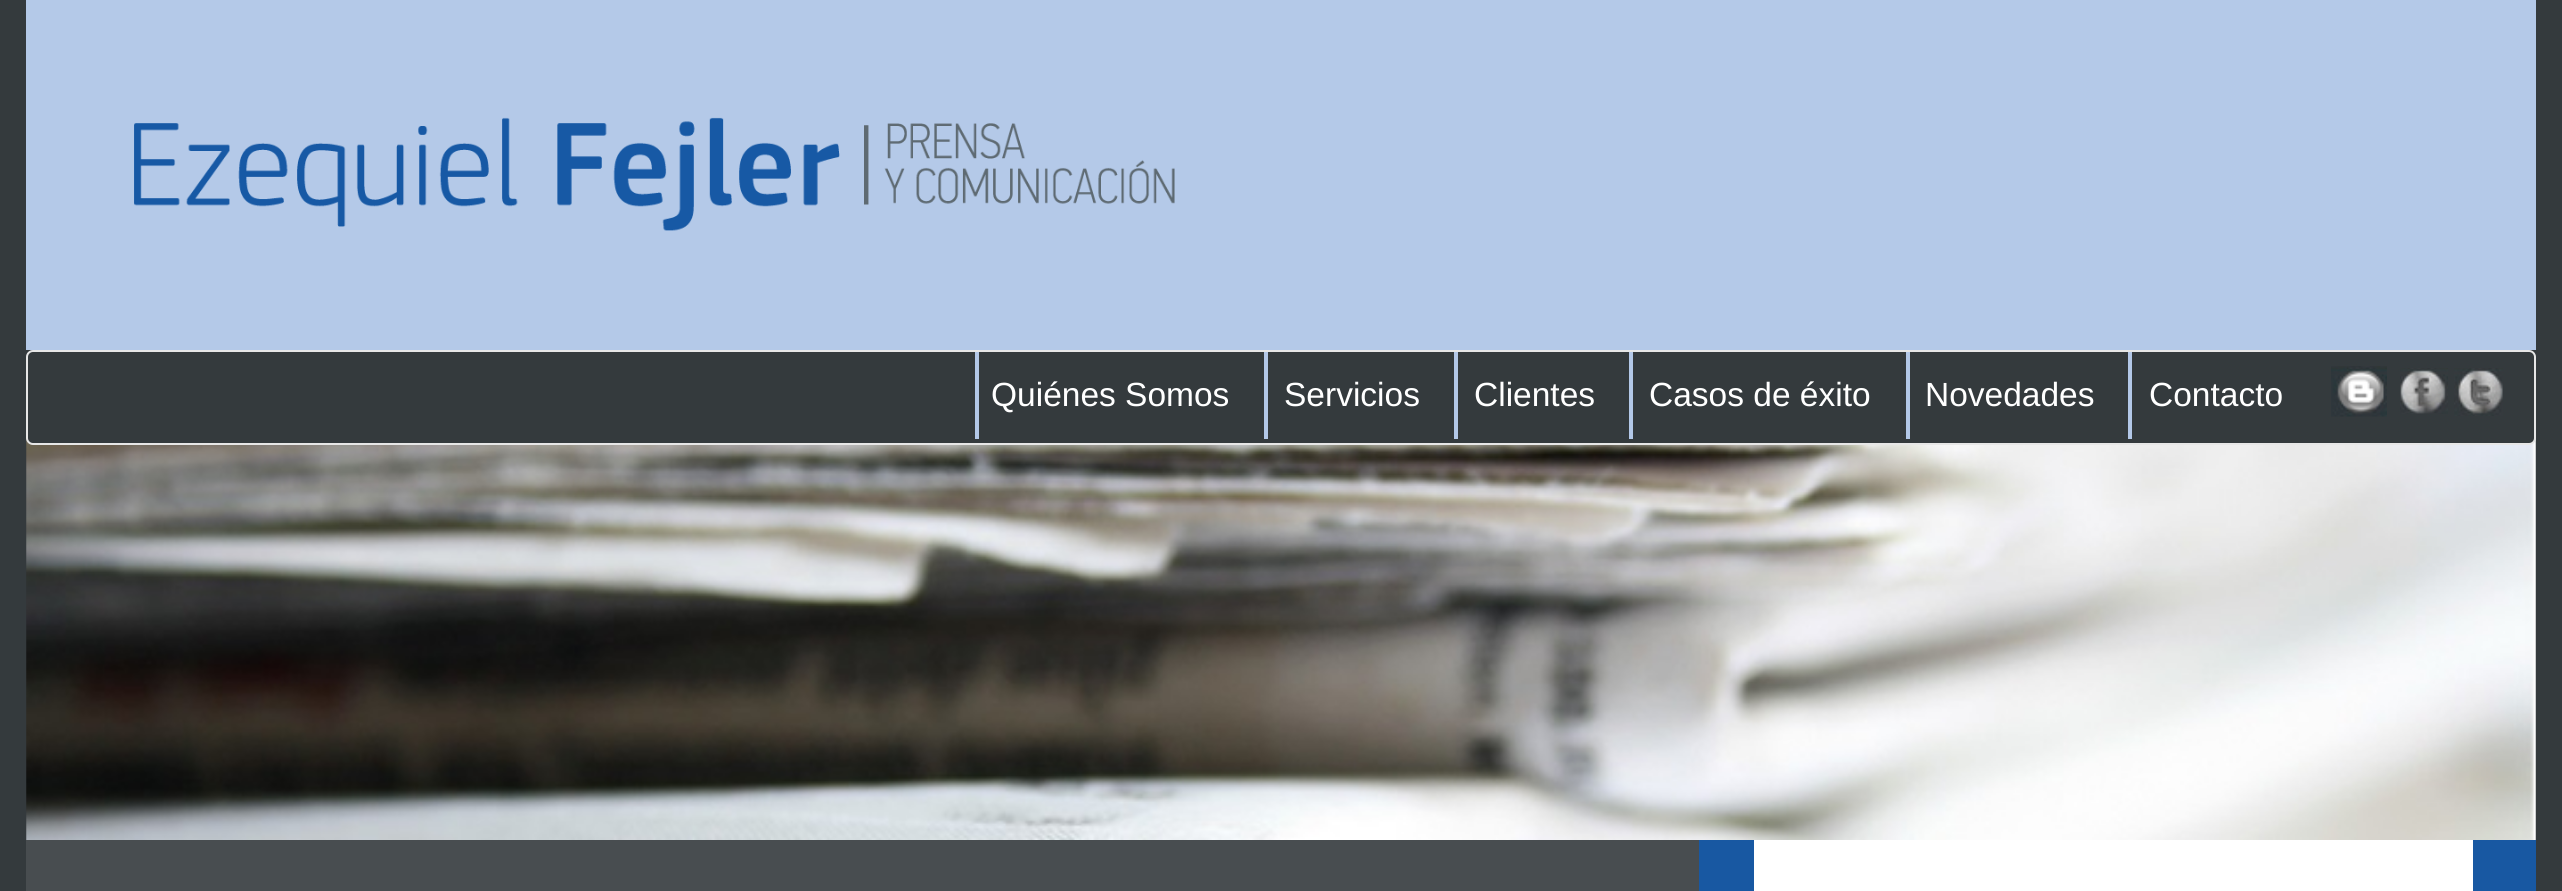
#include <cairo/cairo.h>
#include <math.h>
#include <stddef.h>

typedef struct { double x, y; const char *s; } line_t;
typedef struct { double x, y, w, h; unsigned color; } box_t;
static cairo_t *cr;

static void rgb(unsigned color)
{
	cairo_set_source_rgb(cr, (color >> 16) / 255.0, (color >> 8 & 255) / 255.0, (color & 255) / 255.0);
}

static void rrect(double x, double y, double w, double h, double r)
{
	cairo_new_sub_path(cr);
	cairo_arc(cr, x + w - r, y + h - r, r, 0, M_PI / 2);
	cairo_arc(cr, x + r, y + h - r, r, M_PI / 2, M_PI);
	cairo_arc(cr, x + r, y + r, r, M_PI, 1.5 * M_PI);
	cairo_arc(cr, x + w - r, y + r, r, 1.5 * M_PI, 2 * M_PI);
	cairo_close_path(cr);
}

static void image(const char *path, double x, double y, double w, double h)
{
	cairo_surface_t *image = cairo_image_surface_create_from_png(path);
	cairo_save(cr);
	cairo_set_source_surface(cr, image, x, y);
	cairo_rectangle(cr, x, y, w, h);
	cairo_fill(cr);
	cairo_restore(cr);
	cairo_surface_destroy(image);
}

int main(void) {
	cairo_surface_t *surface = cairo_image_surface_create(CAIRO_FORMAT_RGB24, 2562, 891);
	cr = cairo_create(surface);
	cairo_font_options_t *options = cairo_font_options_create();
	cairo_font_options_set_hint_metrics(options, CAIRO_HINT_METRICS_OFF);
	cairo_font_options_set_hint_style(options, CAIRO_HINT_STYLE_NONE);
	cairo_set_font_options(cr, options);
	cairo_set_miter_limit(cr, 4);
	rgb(0x343a3d);
	cairo_paint(cr);
	rgb(0xb4c9e8);
	cairo_rectangle(cr, 26, 0, 2510, 350);
	cairo_fill(cr);
	image("img/1.png", 134, 117, 1041, 114);
	image("img/5.png", 26, 438, 2510, 402);
	rgb(0x343a3d);
	rrect(27, 351, 2508, 93, 6);
	cairo_fill_preserve(cr);
	rgb(0xe7e7e7);
	cairo_stroke(cr);
	{
		static const box_t items[] = {
			{975, 352, 4, 87, 0xb3c8e8},
			{1264, 352, 4, 87, 0xb3c8e8},
			{1454, 352, 4, 87, 0xb3c8e8},
			{1629, 352, 4, 87, 0xb3c8e8},
			{1906, 352, 4, 87, 0xb3c8e8},
			{2128, 352, 4, 87, 0xb3c8e8},
		};
		for (size_t i = 0; i < sizeof items / sizeof *items; i++) {
			rgb(items[i].color);
			cairo_rectangle(cr, items[i].x, items[i].y, items[i].w, items[i].h);
			cairo_fill(cr);
		}
	}
	image("img/2.png", 2331, 366, 56, 51);
	image("img/3.png", 2400, 368, 48, 46);
	image("img/4.png", 2454, 368, 49, 48);
	{
		static const box_t items[] = {
			{26, 840, 1673, 51, 0x484d50},
			{1699, 840, 837, 51, 0x1858a2},
			{1754, 840, 719, 51, 0xffffff},
		};
		for (size_t i = 0; i < sizeof items / sizeof *items; i++) {
			rgb(items[i].color);
			cairo_rectangle(cr, items[i].x, items[i].y, items[i].w, items[i].h);
			cairo_fill(cr);
		}
	}
	cairo_select_font_face(cr, "Liberation Sans", CAIRO_FONT_SLANT_NORMAL, CAIRO_FONT_WEIGHT_NORMAL);
	cairo_set_font_size(cr, 33.5);
	{
		static const line_t items[] = {
			{991, 406, "Quiénes Somos"},
			{1284, 406, "Servicios"},
			{1474, 406, "Clientes"},
			{1649, 406, "Casos de éxito"},
			{1925, 406, "Novedades"},
			{2149, 406, "Contacto"},
		};
		for (size_t i = 0; i < sizeof items / sizeof *items; i++) {
			cairo_move_to(cr, items[i].x, items[i].y);
			cairo_show_text(cr, items[i].s);
		}
	}
	cairo_surface_write_to_png(surface, "page.png");
	cairo_font_options_destroy(options);
	cairo_destroy(cr);
	cairo_surface_destroy(surface);
	return 0;
}
